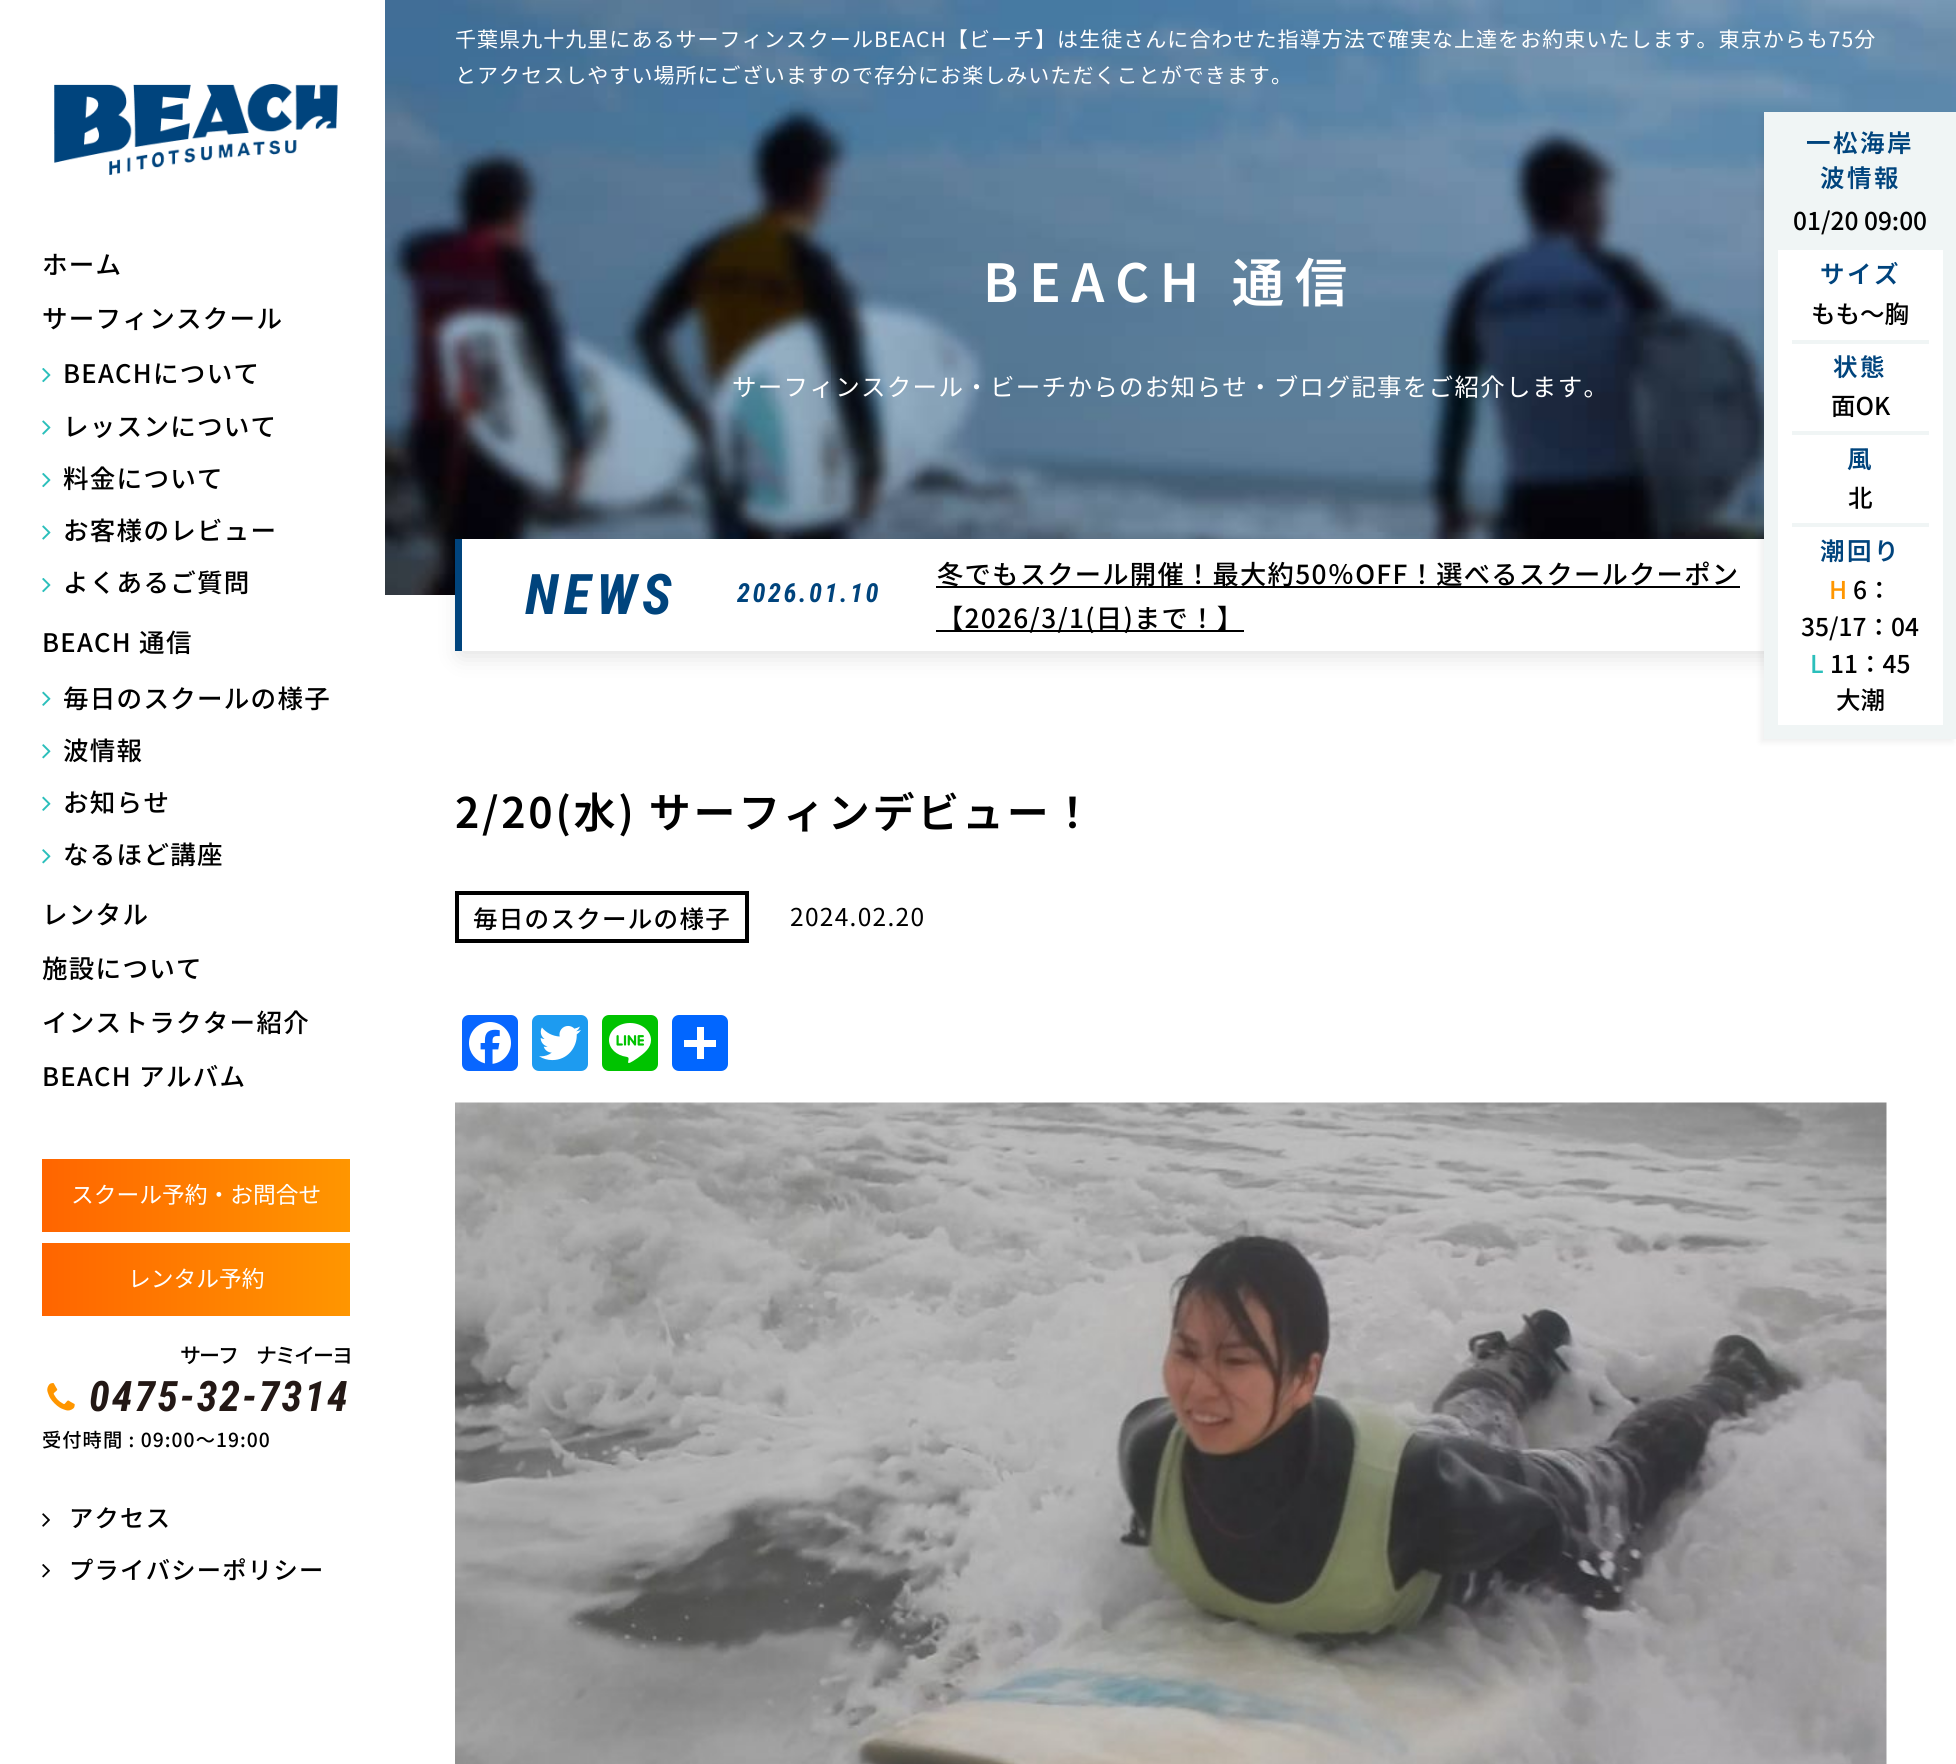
#include <cairo/cairo.h>
#include <math.h>
#include <stddef.h>

typedef struct { double x, y; const char *s; } line_t;
typedef struct { double x, y, w, h; unsigned color; } box_t;
static cairo_t *cr;

static void rgb(unsigned color)
{
	cairo_set_source_rgb(cr, (color >> 16) / 255.0, (color >> 8 & 255) / 255.0, (color & 255) / 255.0);
}

static void tracked(double x, double y, const char *s, double letter, double word)
{
	cairo_move_to(cr, x, y);
	while (*s) {
		char ch[5] = {0};
		int n = 0;
		do ch[n++] = *s++; while ((*s & 0xC0) == 0x80);
		cairo_show_text(cr, ch);
		cairo_rel_move_to(cr, letter + word * (*ch == ' '), 0);
	}
}

static void rrect(double x, double y, double w, double h, double r)
{
	cairo_new_sub_path(cr);
	cairo_arc(cr, x + w - r, y + h - r, r, 0, M_PI / 2);
	cairo_arc(cr, x + r, y + h - r, r, M_PI / 2, M_PI);
	cairo_arc(cr, x + r, y + r, r, M_PI, 1.5 * M_PI);
	cairo_arc(cr, x + w - r, y + r, r, 1.5 * M_PI, 2 * M_PI);
	cairo_close_path(cr);
}

static void soft_shadow(double x, double y, double w, double h, double r, double blur, double alpha)
{
	cairo_push_group_with_content(cr, CAIRO_CONTENT_ALPHA);
	cairo_set_operator(cr, CAIRO_OPERATOR_SOURCE);
	for (int i = 15; i >= -15 && fmin(w, h) + blur * i / 3 > 0; i -= 2) {
		double e = blur * i / 6;
		cairo_set_source_rgba(cr, 0, 0, 0, alpha * erfc((i - 1) / 8.5) / 2);
		rrect(x - e, y - e, w + 2 * e, h + 2 * e, fmax(0, fmin(r + e + blur * .6, fmin(w, h) / 2 + e)));
		cairo_fill(cr);
	}
	cairo_pattern_t *soft = cairo_pop_group(cr);
	cairo_mask(cr, soft);
	cairo_pattern_destroy(soft);
}

static void image(const char *path, double x, double y, double w, double h)
{
	cairo_surface_t *image = cairo_image_surface_create_from_png(path);
	cairo_save(cr);
	cairo_set_source_surface(cr, image, x, y);
	cairo_rectangle(cr, x, y, w, h);
	cairo_fill(cr);
	cairo_restore(cr);
	cairo_surface_destroy(image);
}

int main(void) {
	cairo_surface_t *surface = cairo_image_surface_create(CAIRO_FORMAT_RGB24, 1956, 1764);
	cr = cairo_create(surface);
	cairo_font_options_t *options = cairo_font_options_create();
	cairo_font_options_set_hint_metrics(options, CAIRO_HINT_METRICS_OFF);
	cairo_font_options_set_hint_style(options, CAIRO_HINT_STYLE_NONE);
	cairo_set_font_options(cr, options);
	cairo_set_miter_limit(cr, 4);
	cairo_pattern_t *gradient;
	rgb(0xffffff);
	cairo_paint(cr);
	image("img/1.png", 385, 0, 1571, 595);
	rgb(0x000000);
	soft_shadow(460, 544, 1432, 112, 0, 12, 0.12);
	{
		static const box_t items[] = {
			{462, 539, 1302, 112, 0xffffff},
			{455, 539, 7, 112, 0x00447d},
			{936, 586, 804, 2, 0x000000},
			{936, 630, 308, 2, 0x000000},
		};
		for (size_t i = 0; i < sizeof items / sizeof *items; i++) {
			rgb(items[i].color);
			cairo_rectangle(cr, items[i].x, items[i].y, items[i].w, items[i].h);
			cairo_fill(cr);
		}
	}
	cairo_rectangle(cr, 457, 893, 290, 48);
	cairo_set_line_width(cr, 4);
	cairo_stroke(cr);
	rgb(0x0866ff);
	rrect(462, 1015, 56, 56, 7);
	cairo_fill(cr);
	image("img/2.png", 469, 1022, 42, 42);
	rgb(0x1d9bf0);
	rrect(532, 1015, 56, 56, 7);
	cairo_fill(cr);
	image("img/3.png", 539, 1025, 42, 36);
	rgb(0x00c300);
	rrect(602, 1015, 56, 56, 7);
	cairo_fill(cr);
	image("img/4.png", 609, 1023, 42, 40);
	rgb(0x0166ff);
	rrect(672, 1015, 56, 56, 7);
	cairo_fill(cr);
	rgb(0xffffff);
	cairo_rectangle(cr, 697, 1027, 7, 32);
	cairo_fill(cr);
	cairo_rectangle(cr, 684, 1040, 32, 7);
	cairo_fill(cr);
	image("img/5.png", 455, 1102, 1432, 662);
	image("img/6.png", 54, 84, 284, 91);
	image("img/7.png", 42, 368, 9, 15);
	image("img/8.png", 42, 420, 9, 15);
	image("img/7.png", 42, 473, 9, 15);
	image("img/8.png", 42, 525, 9, 15);
	image("img/7.png", 42, 578, 9, 15);
	image("img/9.png", 42, 691, 9, 15);
	image("img/10.png", 42, 744, 9, 15);
	image("img/9.png", 42, 796, 9, 15);
	image("img/10.png", 42, 849, 9, 15);
	gradient = cairo_pattern_create_linear(42, 1195, 658, 1195);
	cairo_pattern_add_color_stop_rgba(gradient, 0, 1, 0.396, 0, 1);
	cairo_pattern_add_color_stop_rgba(gradient, 0.5, 1, 0.588, 0, 1);
	cairo_pattern_add_color_stop_rgba(gradient, 1, 1, 0.396, 0, 1);
	cairo_set_source(cr, gradient);
	cairo_pattern_destroy(gradient);
	cairo_rectangle(cr, 42, 1159, 308, 73);
	cairo_fill(cr);
	gradient = cairo_pattern_create_linear(42, 1279, 658, 1279);
	cairo_pattern_add_color_stop_rgba(gradient, 0, 1, 0.396, 0, 1);
	cairo_pattern_add_color_stop_rgba(gradient, 0.5, 1, 0.588, 0, 1);
	cairo_pattern_add_color_stop_rgba(gradient, 1, 1, 0.396, 0, 1);
	cairo_set_source(cr, gradient);
	cairo_pattern_destroy(gradient);
	cairo_rectangle(cr, 42, 1243, 308, 73);
	cairo_fill(cr);
	image("img/11.png", 47, 1383, 28, 28);
	image("img/12.png", 42, 1513, 8, 14);
	image("img/13.png", 42, 1564, 8, 14);
	rgb(0x000000);
	soft_shadow(1761, 116, 192, 626, 0, 3.5, 0.07);
	{
		static const box_t items[] = {
			{1764, 112, 192, 627, 0xf0f5f5},
			{1778, 250, 165, 475, 0xffffff},
			{1792, 340, 137, 4, 0xf0f5f5},
			{1792, 431, 137, 4, 0xf0f5f5},
			{1792, 523, 137, 4, 0xf0f5f5},
		};
		for (size_t i = 0; i < sizeof items / sizeof *items; i++) {
			rgb(items[i].color);
			cairo_rectangle(cr, items[i].x, items[i].y, items[i].w, items[i].h);
			cairo_fill(cr);
		}
	}
	cairo_select_font_face(cr, "Noto Sans JP", CAIRO_FONT_SLANT_NORMAL, CAIRO_FONT_WEIGHT_NORMAL);
	cairo_set_font_size(cr, 21);
	rgb(0xffffff);
	tracked(455, 47, "千葉県九十九里にあるサーフィンスクールBEACH【ビーチ】は生徒さんに合わせた指導方法で確実な上達をお約束いたします。東京からも75分", 1.05, 0);
	tracked(455, 83, "とアクセスしやすい場所にございますので存分にお楽しみいただくことができます。", 1.05, 0);
	cairo_select_font_face(cr, "Noto Sans JP SemiBold", CAIRO_FONT_SLANT_NORMAL, CAIRO_FONT_WEIGHT_NORMAL);
	cairo_set_font_size(cr, 52.5);
	tracked(983, 302, "BEACH 通信", 10.5, 0);
	cairo_select_font_face(cr, "Noto Sans JP", CAIRO_FONT_SLANT_NORMAL, CAIRO_FONT_WEIGHT_NORMAL);
	cairo_set_font_size(cr, 24.5);
	tracked(732, 396, "サーフィンスクール・ビーチからのお知らせ・ブログ記事をご紹介します。", 1.3, 0);
	cairo_select_font_face(cr, "Roboto Condensed", CAIRO_FONT_SLANT_ITALIC, CAIRO_FONT_WEIGHT_BOLD);
	cairo_set_font_size(cr, 56);
	rgb(0x00447d);
	tracked(525, 614, "NEWS", 5.5, 0);
	cairo_set_font_size(cr, 26.25);
	tracked(737, 602, "2026.01.10", 2.6, 0);
	cairo_select_font_face(cr, "Noto Sans JP Medium", CAIRO_FONT_SLANT_NORMAL, CAIRO_FONT_WEIGHT_NORMAL);
	rgb(0x000000);
	tracked(937, 584, "冬でもスクール開催！最大約50％OFF！選べるスクールクーポン", 1.3, 0);
	tracked(937, 628, "【2026/3/1(日)まで！】", 1.3, 0);
	cairo_select_font_face(cr, "Noto Sans JP SemiBold", CAIRO_FONT_SLANT_NORMAL, CAIRO_FONT_WEIGHT_NORMAL);
	cairo_set_font_size(cr, 42);
	tracked(455, 828, "2/20(水) サーフィンデビュー！", 2.75, 0);
	cairo_select_font_face(cr, "Noto Sans JP Medium", CAIRO_FONT_SLANT_NORMAL, CAIRO_FONT_WEIGHT_NORMAL);
	cairo_set_font_size(cr, 24.5);
	tracked(473, 928, "毎日のスクールの様子", 1.3, 0);
	cairo_select_font_face(cr, "Noto Sans JP", CAIRO_FONT_SLANT_NORMAL, CAIRO_FONT_WEIGHT_NORMAL);
	tracked(790, 926, "2024.02.20", 1.3, 0);
	cairo_select_font_face(cr, "Noto Sans JP Medium", CAIRO_FONT_SLANT_NORMAL, CAIRO_FONT_WEIGHT_NORMAL);
	cairo_set_font_size(cr, 25.5);
	{
		static const line_t items[] = {
			{42, 274, "ホーム"},
			{42, 328, "サーフィンスクール"},
			{63, 383, "BEACHについて"},
			{63, 436, "レッスンについて"},
			{63, 488, "料金について"},
			{63, 540, "お客様のレビュー"},
			{63, 592, "よくあるご質問"},
			{42, 652, "BEACH 通信"},
			{63, 708, "毎日のスクールの様子"},
			{63, 760, "波情報"},
			{63, 812, "お知らせ"},
			{63, 864, "なるほど講座"},
			{42, 924, "レンタル"},
			{42, 978, "施設について"},
			{42, 1032, "インストラクター紹介"},
			{42, 1086, "BEACH アルバム"},
		};
		for (size_t i = 0; i < sizeof items / sizeof *items; i++) {
			tracked(items[i].x, items[i].y, items[i].s, 1.3, 0);
		}
	}
	cairo_select_font_face(cr, "Noto Sans JP", CAIRO_FONT_SLANT_NORMAL, CAIRO_FONT_WEIGHT_NORMAL);
	cairo_set_font_size(cr, 22.75);
	rgb(0xffffff);
	cairo_move_to(cr, 71, 1203);
	cairo_show_text(cr, "スクール予約・お問合せ");
	cairo_move_to(cr, 128, 1287);
	cairo_show_text(cr, "レンタル予約");
	cairo_select_font_face(cr, "Noto Sans JP Medium", CAIRO_FONT_SLANT_NORMAL, CAIRO_FONT_WEIGHT_NORMAL);
	cairo_set_font_size(cr, 21);
	rgb(0x000000);
	tracked(180, 1363, "サーフ　ナミイーヨ", -2, 0);
	cairo_select_font_face(cr, "Roboto Condensed", CAIRO_FONT_SLANT_ITALIC, CAIRO_FONT_WEIGHT_BOLD);
	cairo_set_font_size(cr, 42);
	rgb(0x231815);
	tracked(89, 1411, "0475-32-7314", 2.1, 0);
	cairo_select_font_face(cr, "Noto Sans JP Medium", CAIRO_FONT_SLANT_NORMAL, CAIRO_FONT_WEIGHT_NORMAL);
	cairo_set_font_size(cr, 19.25);
	rgb(0x000000);
	tracked(42, 1447, "受付時間 : 09:00〜19:00", 1.05, 0);
	cairo_set_font_size(cr, 24.25);
	tracked(69, 1527, "アクセス", 1.3, 0);
	tracked(69, 1579, "プライバシーポリシー", 1.3, 0);
	cairo_select_font_face(cr, "Noto Sans JP SemiBold", CAIRO_FONT_SLANT_NORMAL, CAIRO_FONT_WEIGHT_NORMAL);
	cairo_set_font_size(cr, 24.5);
	rgb(0x00447d);
	tracked(1806, 152, "一松海岸", 2.5, 0);
	tracked(1820, 187, "波情報", 2.5, 0);
	cairo_select_font_face(cr, "Noto Sans JP Medium", CAIRO_FONT_SLANT_NORMAL, CAIRO_FONT_WEIGHT_NORMAL);
	rgb(0x000000);
	cairo_move_to(cr, 1793, 230);
	cairo_show_text(cr, "01/20 09:00");
	cairo_select_font_face(cr, "Noto Sans JP SemiBold", CAIRO_FONT_SLANT_NORMAL, CAIRO_FONT_WEIGHT_NORMAL);
	rgb(0x00447d);
	tracked(1820, 283, "サイズ", 2.5, 0);
	cairo_select_font_face(cr, "Noto Sans JP Medium", CAIRO_FONT_SLANT_NORMAL, CAIRO_FONT_WEIGHT_NORMAL);
	rgb(0x000000);
	cairo_move_to(cr, 1811, 323);
	cairo_show_text(cr, "もも～胸");
	cairo_select_font_face(cr, "Noto Sans JP SemiBold", CAIRO_FONT_SLANT_NORMAL, CAIRO_FONT_WEIGHT_NORMAL);
	rgb(0x00447d);
	tracked(1833, 376, "状態", 2.5, 0);
	cairo_select_font_face(cr, "Noto Sans JP Medium", CAIRO_FONT_SLANT_NORMAL, CAIRO_FONT_WEIGHT_NORMAL);
	rgb(0x000000);
	cairo_move_to(cr, 1831, 415);
	cairo_show_text(cr, "面OK");
	cairo_select_font_face(cr, "Noto Sans JP SemiBold", CAIRO_FONT_SLANT_NORMAL, CAIRO_FONT_WEIGHT_NORMAL);
	rgb(0x00447d);
	tracked(1847, 468, "風", 2.5, 0);
	cairo_select_font_face(cr, "Noto Sans JP Medium", CAIRO_FONT_SLANT_NORMAL, CAIRO_FONT_WEIGHT_NORMAL);
	rgb(0x000000);
	cairo_move_to(cr, 1848, 507);
	cairo_show_text(cr, "北");
	cairo_select_font_face(cr, "Noto Sans JP SemiBold", CAIRO_FONT_SLANT_NORMAL, CAIRO_FONT_WEIGHT_NORMAL);
	rgb(0x00447d);
	tracked(1820, 560, "潮回り", 2.5, 0);
	cairo_select_font_face(cr, "Noto Sans JP Medium", CAIRO_FONT_SLANT_NORMAL, CAIRO_FONT_WEIGHT_NORMAL);
	rgb(0xff9600);
	cairo_move_to(cr, 1829, 599);
	cairo_show_text(cr, "H");
	rgb(0x000000);
	cairo_move_to(cr, 1853, 599);
	cairo_show_text(cr, "6：");
	cairo_move_to(cr, 1801, 636);
	cairo_show_text(cr, "35/17：04");
	rgb(0x2bbfbb);
	cairo_move_to(cr, 1810, 673);
	cairo_show_text(cr, "L");
	rgb(0x000000);
	cairo_move_to(cr, 1830, 673);
	cairo_show_text(cr, "11：45");
	cairo_move_to(cr, 1836, 709);
	cairo_show_text(cr, "大潮");
	cairo_surface_write_to_png(surface, "page.png");
	cairo_font_options_destroy(options);
	cairo_destroy(cr);
	cairo_surface_destroy(surface);
	return 0;
}
